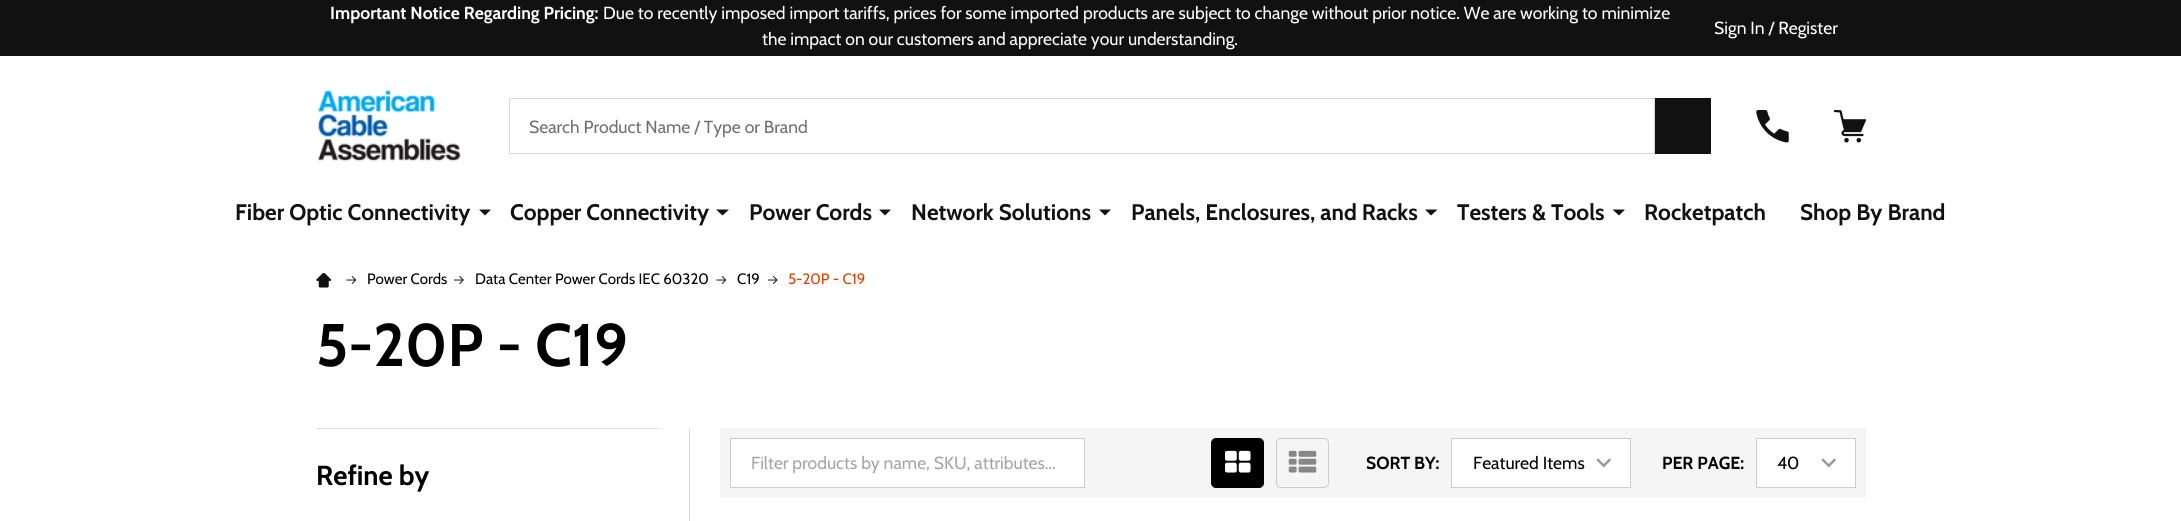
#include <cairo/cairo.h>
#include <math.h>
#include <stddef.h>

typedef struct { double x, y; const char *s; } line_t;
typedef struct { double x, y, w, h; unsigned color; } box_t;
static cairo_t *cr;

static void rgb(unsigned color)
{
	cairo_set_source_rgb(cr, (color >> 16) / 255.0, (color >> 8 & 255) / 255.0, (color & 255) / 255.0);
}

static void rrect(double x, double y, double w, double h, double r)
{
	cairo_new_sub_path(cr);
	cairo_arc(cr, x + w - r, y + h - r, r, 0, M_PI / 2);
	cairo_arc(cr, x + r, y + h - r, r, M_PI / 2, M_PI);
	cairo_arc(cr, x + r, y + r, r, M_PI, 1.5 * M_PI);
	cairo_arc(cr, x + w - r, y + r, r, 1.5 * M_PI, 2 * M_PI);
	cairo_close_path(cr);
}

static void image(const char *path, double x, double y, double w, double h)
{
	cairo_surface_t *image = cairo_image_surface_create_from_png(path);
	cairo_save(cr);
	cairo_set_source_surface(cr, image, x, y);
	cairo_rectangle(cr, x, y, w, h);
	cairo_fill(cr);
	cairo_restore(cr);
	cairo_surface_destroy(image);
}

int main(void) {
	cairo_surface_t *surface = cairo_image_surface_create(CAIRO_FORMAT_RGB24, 2181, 521);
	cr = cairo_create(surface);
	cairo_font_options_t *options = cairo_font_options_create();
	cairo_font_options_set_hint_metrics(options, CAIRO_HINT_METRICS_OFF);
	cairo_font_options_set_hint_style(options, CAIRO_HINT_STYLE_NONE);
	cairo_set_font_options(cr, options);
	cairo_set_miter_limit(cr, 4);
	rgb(0xffffff);
	cairo_paint(cr);
	rgb(0x111111);
	cairo_rectangle(cr, 0, 0, 2181, 56);
	cairo_fill(cr);
	image("img/1.png", 317, 89, 144, 73);
	cairo_rectangle(cr, 509.5, 98.5, 1145, 55);
	rgb(0xd6d6d6);
	cairo_set_line_width(cr, 1);
	cairo_stroke(cr);
	rgb(0x111111);
	cairo_rectangle(cr, 1655, 98, 56, 56);
	cairo_fill(cr);
	image("img/2.png", 1756, 110, 33, 33);
	image("img/3.png", 1834, 110, 32, 33);
	cairo_new_path(cr);
	cairo_move_to(cr, 479, 209.5);
	cairo_line_to(cr, 485, 215.5);
	cairo_line_to(cr, 491, 209.5);
	cairo_close_path(cr);
	cairo_fill(cr);
	cairo_new_path(cr);
	cairo_move_to(cr, 716, 209.5);
	cairo_line_to(cr, 722.5, 215.5);
	cairo_line_to(cr, 729, 209.5);
	cairo_close_path(cr);
	cairo_fill(cr);
	cairo_new_path(cr);
	cairo_move_to(cr, 879, 209.5);
	cairo_line_to(cr, 885, 215.5);
	cairo_line_to(cr, 891, 209.5);
	cairo_close_path(cr);
	cairo_fill(cr);
	cairo_new_path(cr);
	cairo_move_to(cr, 1099, 209.5);
	cairo_line_to(cr, 1105, 215.5);
	cairo_line_to(cr, 1111, 209.5);
	cairo_close_path(cr);
	cairo_fill(cr);
	cairo_new_path(cr);
	cairo_move_to(cr, 1425, 209.5);
	cairo_line_to(cr, 1431, 215.5);
	cairo_line_to(cr, 1437.5, 209.5);
	cairo_close_path(cr);
	cairo_fill(cr);
	cairo_new_path(cr);
	cairo_move_to(cr, 1612.5, 209.5);
	cairo_line_to(cr, 1619, 215.5);
	cairo_line_to(cr, 1625, 209.5);
	cairo_close_path(cr);
	cairo_fill(cr);
	image("img/4.png", 316, 273, 15, 15);
	image("img/5.png", 346, 276, 10, 8);
	image("img/6.png", 454, 276, 10, 8);
	image("img/5.png", 716, 276, 10, 8);
	image("img/7.png", 768, 276, 10, 8);
	{
		static const box_t items[] = {
			{316, 428, 343, 1, 0xdddddd},
			{689, 428, 1, 93, 0xdddddd},
			{720, 428, 1146, 70, 0xf5f5f5},
		};
		for (size_t i = 0; i < sizeof items / sizeof *items; i++) {
			rgb(items[i].color);
			cairo_rectangle(cr, items[i].x, items[i].y, items[i].w, items[i].h);
			cairo_fill(cr);
		}
	}
	rgb(0xffffff);
	cairo_rectangle(cr, 730.5, 438.5, 354, 49);
	cairo_fill_preserve(cr);
	rgb(0xcccccc);
	cairo_stroke(cr);
	rgb(0x000000);
	rrect(1211.5, 438.5, 52, 49, 4.5);
	cairo_fill_preserve(cr);
	cairo_stroke(cr);
	image("img/8.png", 1225, 450, 26, 23);
	rrect(1276.5, 438.5, 52, 49, 4.5);
	rgb(0xcccccc);
	cairo_stroke(cr);
	image("img/9.png", 1288, 450, 29, 23);
	rgb(0xffffff);
	cairo_rectangle(cr, 1452, 439, 178, 48);
	cairo_fill(cr);
	image("img/10.png", 1596, 458, 15, 10);
	cairo_rectangle(cr, 1451.5, 438.5, 179, 49);
	rgb(0xcccccc);
	cairo_stroke(cr);
	rgb(0xffffff);
	cairo_rectangle(cr, 1757, 439, 98, 48);
	cairo_fill(cr);
	image("img/10.png", 1821, 458, 15, 10);
	cairo_rectangle(cr, 1756.5, 438.5, 99, 49);
	rgb(0xcccccc);
	cairo_stroke(cr);
	cairo_select_font_face(cr, "Cabin", CAIRO_FONT_SLANT_NORMAL, CAIRO_FONT_WEIGHT_BOLD);
	cairo_set_font_size(cr, 17.5);
	rgb(0xffffff);
	cairo_move_to(cr, 330, 19);
	cairo_show_text(cr, "Important Notice Regarding Pricing:");
	cairo_select_font_face(cr, "Cabin", CAIRO_FONT_SLANT_NORMAL, CAIRO_FONT_WEIGHT_NORMAL);
	{
		static const line_t items[] = {
			{603, 19, "Due to recently imposed import tariffs, prices for some imported products are subject to change without prior notice. We are working to minimize"},
			{762, 45, "the impact on our customers and appreciate your understanding."},
			{1714, 34, "Sign In / Register"},
		};
		for (size_t i = 0; i < sizeof items / sizeof *items; i++) {
			cairo_move_to(cr, items[i].x, items[i].y);
			cairo_show_text(cr, items[i].s);
		}
	}
	rgb(0x707070);
	cairo_move_to(cr, 529, 133);
	cairo_show_text(cr, "Search Product Name / Type or Brand");
	cairo_select_font_face(cr, "Cabin", CAIRO_FONT_SLANT_NORMAL, CAIRO_FONT_WEIGHT_BOLD);
	cairo_set_font_size(cr, 22.5);
	rgb(0x111111);
	{
		static const line_t items[] = {
			{235, 220, "Fiber Optic Connectivity"},
			{510, 220, "Copper Connectivity"},
			{749, 220, "Power Cords"},
			{911, 220, "Network Solutions"},
			{1131, 220, "Panels, Enclosures, and Racks"},
			{1457, 220, "Testers & Tools"},
			{1644, 220, "Rocketpatch"},
			{1800, 220, "Shop By Brand"},
		};
		for (size_t i = 0; i < sizeof items / sizeof *items; i++) {
			cairo_move_to(cr, items[i].x, items[i].y);
			cairo_show_text(cr, items[i].s);
		}
	}
	cairo_select_font_face(cr, "Cabin", CAIRO_FONT_SLANT_NORMAL, CAIRO_FONT_WEIGHT_NORMAL);
	cairo_set_font_size(cr, 15);
	rgb(0x000000);
	{
		static const line_t items[] = {
			{367, 284, "Power Cords"},
			{475, 284, "Data Center Power Cords IEC 60320"},
			{737, 284, "C19"},
		};
		for (size_t i = 0; i < sizeof items / sizeof *items; i++) {
			cairo_move_to(cr, items[i].x, items[i].y);
			cairo_show_text(cr, items[i].s);
		}
	}
	rgb(0xda4100);
	cairo_move_to(cr, 788, 284);
	cairo_show_text(cr, "5-20P - C19");
	cairo_select_font_face(cr, "Cabin", CAIRO_FONT_SLANT_NORMAL, CAIRO_FONT_WEIGHT_BOLD);
	cairo_set_font_size(cr, 60);
	rgb(0x000000);
	cairo_move_to(cr, 316, 366);
	cairo_show_text(cr, "5-20P - C19");
	cairo_set_font_size(cr, 27.5);
	cairo_move_to(cr, 316, 485);
	cairo_show_text(cr, "Refine by");
	cairo_select_font_face(cr, "Cabin", CAIRO_FONT_SLANT_NORMAL, CAIRO_FONT_WEIGHT_NORMAL);
	cairo_set_font_size(cr, 17.5);
	rgb(0xa5a5a5);
	cairo_move_to(cr, 751, 469);
	cairo_show_text(cr, "Filter products by name, SKU, attributes...");
	cairo_select_font_face(cr, "Cabin", CAIRO_FONT_SLANT_NORMAL, CAIRO_FONT_WEIGHT_BOLD);
	rgb(0x000000);
	cairo_move_to(cr, 1366, 469);
	cairo_show_text(cr, "SORT BY:");
	cairo_select_font_face(cr, "Cabin", CAIRO_FONT_SLANT_NORMAL, CAIRO_FONT_WEIGHT_NORMAL);
	cairo_move_to(cr, 1473, 469);
	cairo_show_text(cr, "Featured Items");
	cairo_select_font_face(cr, "Cabin", CAIRO_FONT_SLANT_NORMAL, CAIRO_FONT_WEIGHT_BOLD);
	cairo_move_to(cr, 1662, 469);
	cairo_show_text(cr, "PER PAGE:");
	cairo_select_font_face(cr, "Cabin", CAIRO_FONT_SLANT_NORMAL, CAIRO_FONT_WEIGHT_NORMAL);
	cairo_move_to(cr, 1777, 469);
	cairo_show_text(cr, "40");
	cairo_surface_write_to_png(surface, "page.png");
	cairo_font_options_destroy(options);
	cairo_destroy(cr);
	cairo_surface_destroy(surface);
	return 0;
}
